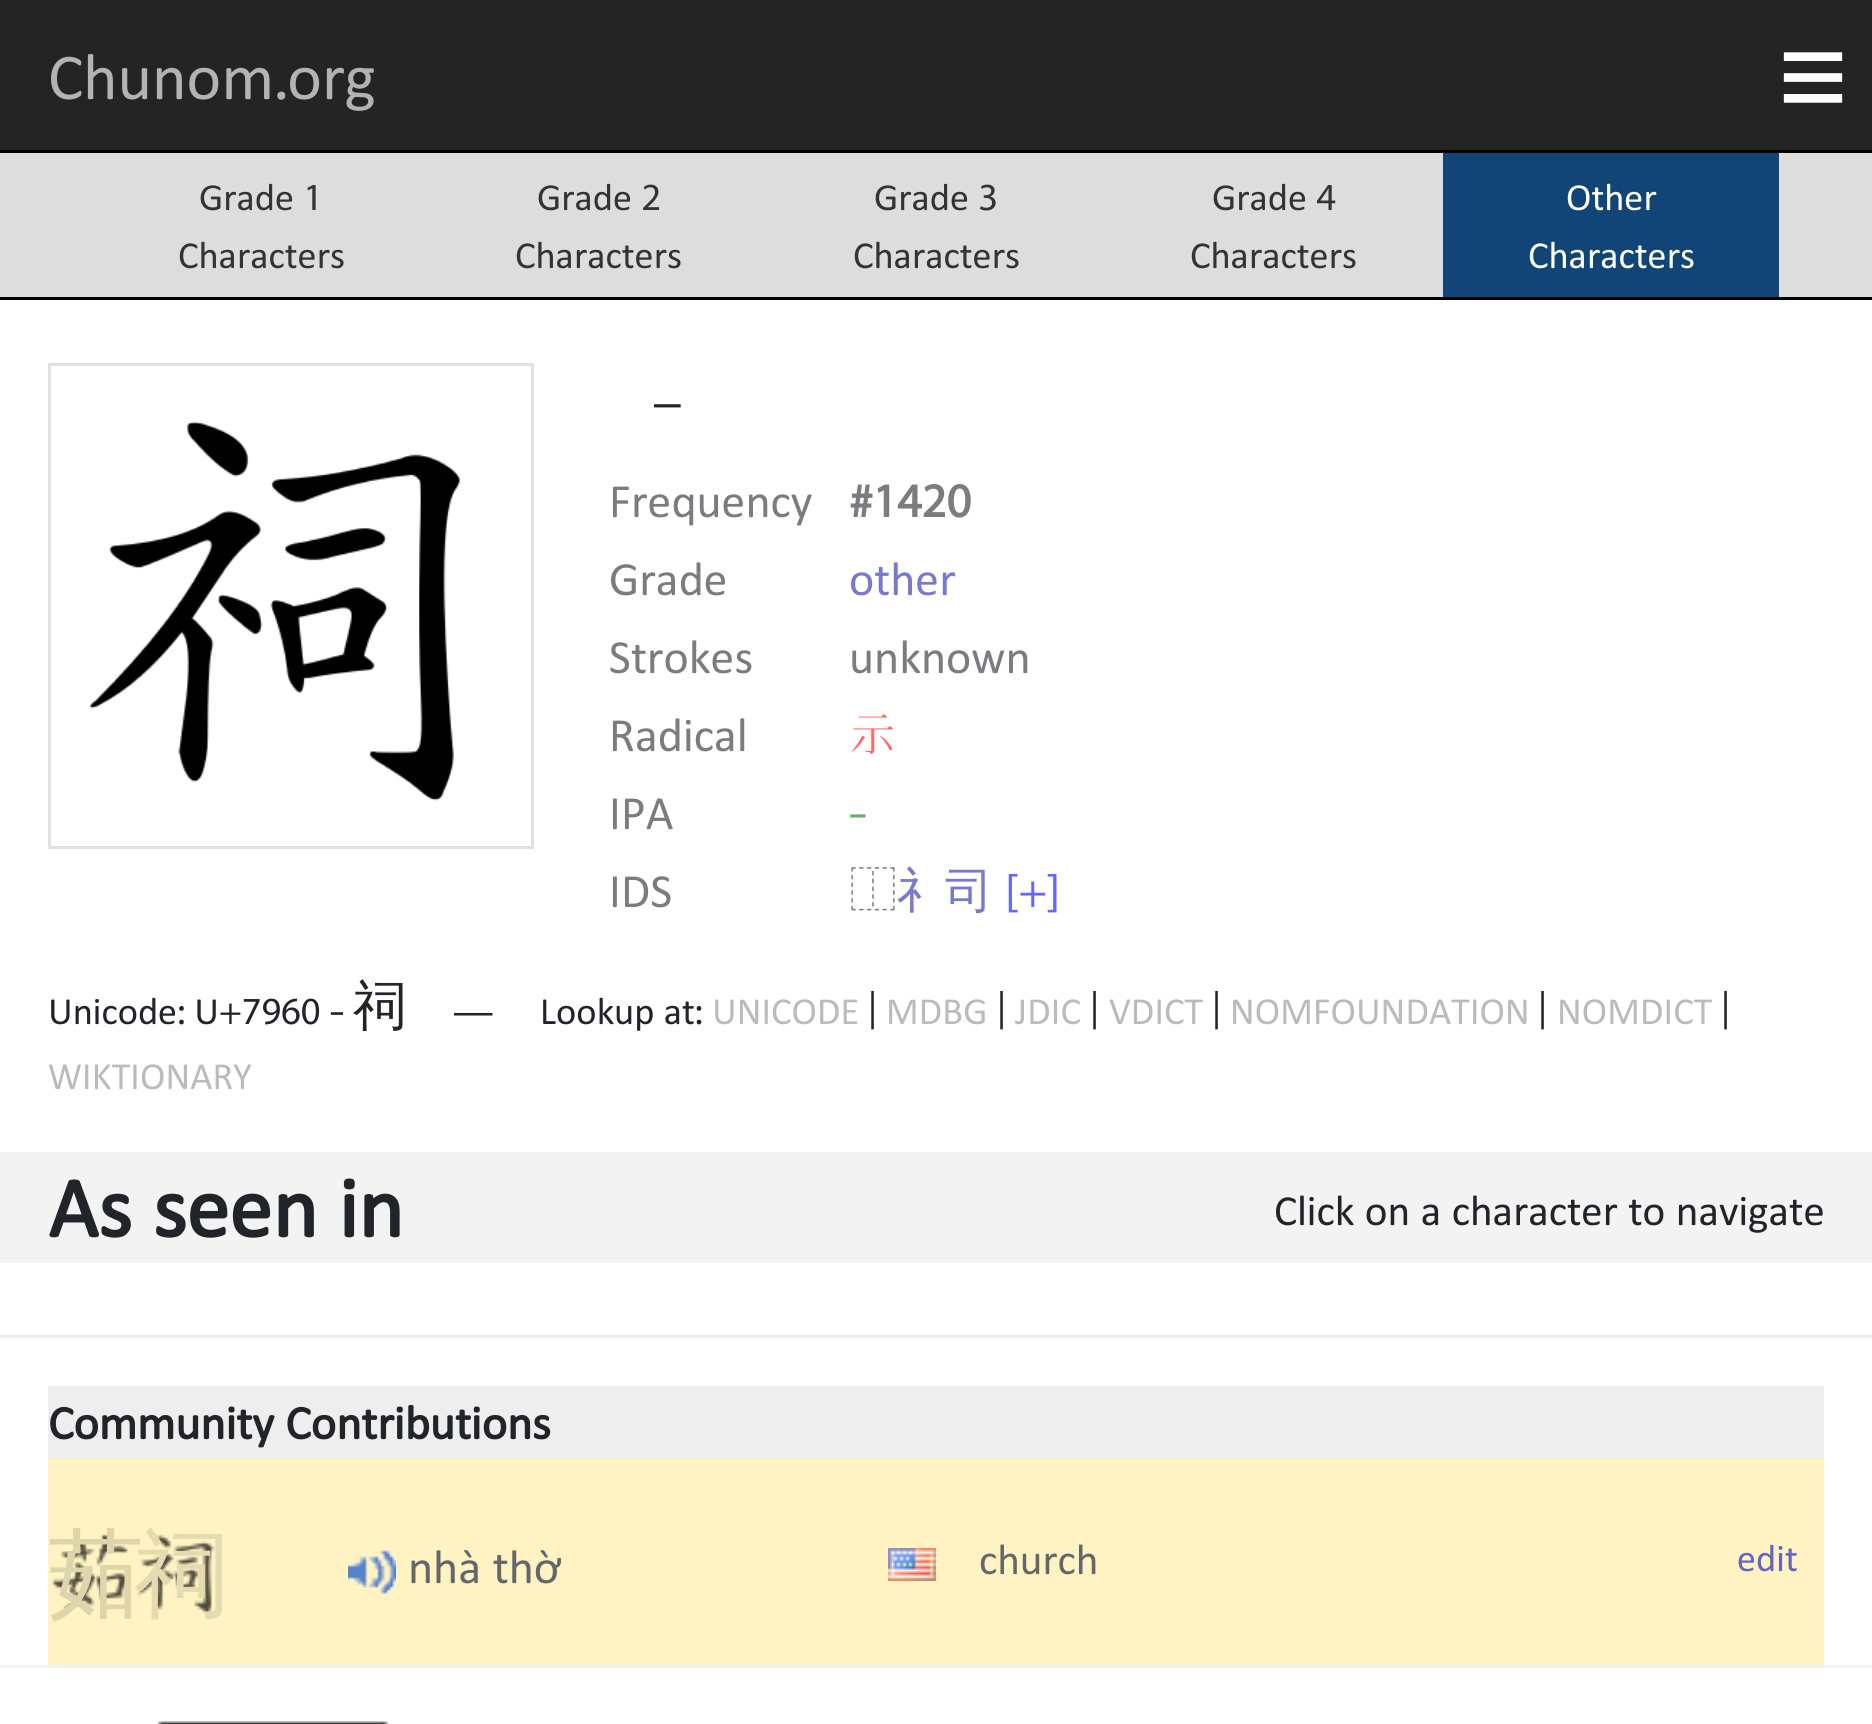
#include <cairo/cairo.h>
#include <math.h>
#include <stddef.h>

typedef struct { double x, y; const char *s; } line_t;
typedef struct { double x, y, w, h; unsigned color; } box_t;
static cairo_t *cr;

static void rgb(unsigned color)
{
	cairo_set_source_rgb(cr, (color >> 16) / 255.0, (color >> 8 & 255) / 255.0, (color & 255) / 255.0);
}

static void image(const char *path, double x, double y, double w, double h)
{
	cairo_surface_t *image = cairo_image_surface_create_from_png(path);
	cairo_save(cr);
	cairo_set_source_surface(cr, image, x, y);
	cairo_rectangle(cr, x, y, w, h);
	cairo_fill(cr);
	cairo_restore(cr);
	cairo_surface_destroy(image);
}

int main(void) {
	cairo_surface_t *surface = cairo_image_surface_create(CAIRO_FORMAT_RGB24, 1872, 1724);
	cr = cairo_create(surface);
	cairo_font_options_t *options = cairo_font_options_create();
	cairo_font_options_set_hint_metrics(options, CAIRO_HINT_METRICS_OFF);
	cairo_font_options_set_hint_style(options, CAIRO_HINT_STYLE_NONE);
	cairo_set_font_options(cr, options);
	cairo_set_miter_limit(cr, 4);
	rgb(0xffffff);
	cairo_paint(cr);
	{
		static const box_t items[] = {
			{0, 0, 1872, 150, 0x242424},
			{0, 153, 1872, 144, 0xdddddd},
			{0, 150, 1872, 3, 0x000000},
			{0, 297, 1872, 3, 0x000000},
			{1443, 153, 336, 144, 0x114477},
		};
		for (size_t i = 0; i < sizeof items / sizeof *items; i++) {
			rgb(items[i].color);
			cairo_rectangle(cr, items[i].x, items[i].y, items[i].w, items[i].h);
			cairo_fill(cr);
		}
	}
	cairo_rectangle(cr, 49.5, 364.5, 483, 483);
	rgb(0xdee2e6);
	cairo_set_line_width(cr, 3);
	cairo_stroke(cr);
	image("img/1.png", 89, 421, 371, 380);
	{
		static const box_t items[] = {
			{0, 1152, 1872, 111, 0xf3f3f3},
			{0, 1335, 1872, 3, 0xeeeeee},
			{48, 1386, 1776, 72, 0xeeeeee},
			{48, 1458, 1776, 207, 0xfff3c4},
		};
		for (size_t i = 0; i < sizeof items / sizeof *items; i++) {
			rgb(items[i].color);
			cairo_rectangle(cr, items[i].x, items[i].y, items[i].w, items[i].h);
			cairo_fill(cr);
		}
	}
	image("img/2.png", 52, 1534, 79, 76);
	image("img/4.png", 348, 1550, 48, 44);
	image("img/5.png", 888, 1548, 48, 33);
	rgb(0xf3f3f3);
	cairo_rectangle(cr, 0, 1665, 1872, 3);
	cairo_fill(cr);
	image("img/6.png", 157, 1721, 232, 3);
	cairo_select_font_face(cr, "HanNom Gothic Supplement", CAIRO_FONT_SLANT_NORMAL, CAIRO_FONT_WEIGHT_NORMAL);
	cairo_set_font_size(cr, 66);
	rgb(0xb3b3b3);
	cairo_move_to(cr, 48, 99);
	cairo_show_text(cr, "Chunom.org");
	cairo_select_font_face(cr, "Liberation Sans", CAIRO_FONT_SLANT_NORMAL, CAIRO_FONT_WEIGHT_NORMAL);
	cairo_set_font_size(cr, 120);
	rgb(0xffffff);
	cairo_move_to(cr, 1778, 117);
	cairo_show_text(cr, "≡");
	cairo_select_font_face(cr, "HanNom Gothic Supplement", CAIRO_FONT_SLANT_NORMAL, CAIRO_FONT_WEIGHT_NORMAL);
	cairo_set_font_size(cr, 38.5);
	rgb(0x333333);
	{
		static const line_t items[] = {
			{199, 210, "Grade 1"},
			{178, 268, "Characters"},
			{537, 210, "Grade 2"},
			{515, 268, "Characters"},
			{874, 210, "Grade 3"},
			{853, 268, "Characters"},
			{1212, 210, "Grade 4"},
			{1190, 268, "Characters"},
		};
		for (size_t i = 0; i < sizeof items / sizeof *items; i++) {
			cairo_move_to(cr, items[i].x, items[i].y);
			cairo_show_text(cr, items[i].s);
		}
	}
	rgb(0xffffff);
	cairo_move_to(cr, 1566, 210);
	cairo_show_text(cr, "Other");
	cairo_move_to(cr, 1528, 268);
	cairo_show_text(cr, "Characters");
	cairo_select_font_face(cr, "Liberation Sans", CAIRO_FONT_SLANT_NORMAL, CAIRO_FONT_WEIGHT_NORMAL);
	cairo_set_font_size(cr, 48);
	rgb(0x212529);
	cairo_move_to(cr, 654, 418);
	cairo_show_text(cr, "–");
	cairo_select_font_face(cr, "HanNom Gothic Supplement", CAIRO_FONT_SLANT_NORMAL, CAIRO_FONT_WEIGHT_NORMAL);
	rgb(0x7a7c7f);
	cairo_move_to(cr, 609, 517);
	cairo_show_text(cr, "Frequency");
	cairo_select_font_face(cr, "HanNom Gothic Supplement", CAIRO_FONT_SLANT_NORMAL, CAIRO_FONT_WEIGHT_BOLD);
	cairo_move_to(cr, 849, 517);
	cairo_show_text(cr, "#1420");
	cairo_select_font_face(cr, "HanNom Gothic Supplement", CAIRO_FONT_SLANT_NORMAL, CAIRO_FONT_WEIGHT_NORMAL);
	cairo_move_to(cr, 609, 595);
	cairo_show_text(cr, "Grade");
	rgb(0x7a7acc);
	cairo_move_to(cr, 849, 595);
	cairo_show_text(cr, "other");
	rgb(0x7a7c7f);
	{
		static const line_t items[] = {
			{609, 673, "Strokes"},
			{849, 673, "unknown"},
			{609, 751, "Radical"},
		};
		for (size_t i = 0; i < sizeof items / sizeof *items; i++) {
			cairo_move_to(cr, items[i].x, items[i].y);
			cairo_show_text(cr, items[i].s);
		}
	}
	cairo_select_font_face(cr, "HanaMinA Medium", CAIRO_FONT_SLANT_NORMAL, CAIRO_FONT_WEIGHT_NORMAL);
	rgb(0xff6666);
	cairo_move_to(cr, 849, 751);
	cairo_show_text(cr, "⽰");
	cairo_select_font_face(cr, "HanNom Gothic Supplement", CAIRO_FONT_SLANT_NORMAL, CAIRO_FONT_WEIGHT_NORMAL);
	rgb(0x7a7c7f);
	cairo_move_to(cr, 609, 829);
	cairo_show_text(cr, "IPA");
	rgb(0x66b366);
	cairo_move_to(cr, 849, 829);
	cairo_show_text(cr, "-");
	rgb(0x7a7c7f);
	cairo_move_to(cr, 609, 907);
	cairo_show_text(cr, "IDS");
	cairo_select_font_face(cr, "Chiron Hei HK", CAIRO_FONT_SLANT_NORMAL, CAIRO_FONT_WEIGHT_NORMAL);
	cairo_move_to(cr, 849, 907);
	cairo_show_text(cr, "⿰");
	cairo_select_font_face(cr, "WenQuanYi Zen Hei Medium", CAIRO_FONT_SLANT_NORMAL, CAIRO_FONT_WEIGHT_NORMAL);
	rgb(0x7a7acc);
	cairo_move_to(cr, 897, 907);
	cairo_show_text(cr, "礻司");
	cairo_select_font_face(cr, "HanNom Gothic Supplement", CAIRO_FONT_SLANT_NORMAL, CAIRO_FONT_WEIGHT_NORMAL);
	rgb(0x6666ff);
	cairo_move_to(cr, 1005, 907);
	cairo_show_text(cr, "[+]");
	cairo_set_font_size(cr, 38.5);
	rgb(0x212529);
	cairo_move_to(cr, 48, 1024);
	cairo_show_text(cr, "Unicode: U+7960 -");
	cairo_select_font_face(cr, "WenQuanYi Zen Hei Medium", CAIRO_FONT_SLANT_NORMAL, CAIRO_FONT_WEIGHT_NORMAL);
	cairo_set_font_size(cr, 54);
	cairo_move_to(cr, 353, 1024);
	cairo_show_text(cr, "祠");
	cairo_select_font_face(cr, "Liberation Sans", CAIRO_FONT_SLANT_NORMAL, CAIRO_FONT_WEIGHT_NORMAL);
	cairo_set_font_size(cr, 38.5);
	cairo_move_to(cr, 454, 1024);
	cairo_show_text(cr, "—");
	cairo_select_font_face(cr, "HanNom Gothic Supplement", CAIRO_FONT_SLANT_NORMAL, CAIRO_FONT_WEIGHT_NORMAL);
	cairo_move_to(cr, 540, 1024);
	cairo_show_text(cr, "Lookup at:");
	rgb(0xbbbbbb);
	cairo_move_to(cr, 712, 1024);
	cairo_show_text(cr, "UNICODE");
	rgb(0x212529);
	cairo_move_to(cr, 868, 1024);
	cairo_show_text(cr, "|");
	rgb(0xbbbbbb);
	cairo_move_to(cr, 886, 1024);
	cairo_show_text(cr, "MDBG");
	rgb(0x212529);
	cairo_move_to(cr, 997, 1024);
	cairo_show_text(cr, "|");
	rgb(0xbbbbbb);
	cairo_move_to(cr, 1015, 1024);
	cairo_show_text(cr, "JDIC");
	rgb(0x212529);
	cairo_move_to(cr, 1090, 1024);
	cairo_show_text(cr, "|");
	rgb(0xbbbbbb);
	cairo_move_to(cr, 1109, 1024);
	cairo_show_text(cr, "VDICT");
	rgb(0x212529);
	cairo_move_to(cr, 1212, 1024);
	cairo_show_text(cr, "|");
	rgb(0xbbbbbb);
	cairo_move_to(cr, 1230, 1024);
	cairo_show_text(cr, "NOMFOUNDATION");
	rgb(0x212529);
	cairo_move_to(cr, 1538, 1024);
	cairo_show_text(cr, "|");
	rgb(0xbbbbbb);
	cairo_move_to(cr, 1557, 1024);
	cairo_show_text(cr, "NOMDICT");
	rgb(0x212529);
	cairo_move_to(cr, 1721, 1024);
	cairo_show_text(cr, "|");
	rgb(0xbbbbbb);
	cairo_move_to(cr, 48, 1089);
	cairo_show_text(cr, "WIKTIONARY");
	cairo_select_font_face(cr, "HanNom Gothic Supplement", CAIRO_FONT_SLANT_NORMAL, CAIRO_FONT_WEIGHT_BOLD);
	cairo_set_font_size(cr, 86.5);
	rgb(0x212529);
	cairo_move_to(cr, 48, 1237);
	cairo_show_text(cr, "As seen in");
	cairo_select_font_face(cr, "HanNom Gothic Supplement", CAIRO_FONT_SLANT_NORMAL, CAIRO_FONT_WEIGHT_NORMAL);
	cairo_set_font_size(cr, 43.25);
	cairo_move_to(cr, 1274, 1225);
	cairo_show_text(cr, "Click on a character to navigate");
	cairo_select_font_face(cr, "HanNom Gothic Supplement", CAIRO_FONT_SLANT_NORMAL, CAIRO_FONT_WEIGHT_BOLD);
	cairo_set_font_size(cr, 48);
	cairo_move_to(cr, 48, 1439);
	cairo_show_text(cr, "Community Contributions");
	cairo_select_font_face(cr, "WenQuanYi Zen Hei Medium", CAIRO_FONT_SLANT_NORMAL, CAIRO_FONT_WEIGHT_NORMAL);
	cairo_set_font_size(cr, 96);
	rgb(0xdfd5ac);
	cairo_move_to(cr, 48, 1607);
	cairo_show_text(cr, "茹");
	image("img/3.png", 137, 1534, 78, 81);
	rgb(0xe5dab0);
	cairo_move_to(cr, 134, 1607);
	cairo_show_text(cr, "祠");
	cairo_select_font_face(cr, "HanNom Gothic Supplement", CAIRO_FONT_SLANT_NORMAL, CAIRO_FONT_WEIGHT_NORMAL);
	cairo_set_font_size(cr, 48);
	rgb(0x646669);
	cairo_move_to(cr, 408, 1583);
	cairo_show_text(cr, "nhà thờ");
	cairo_set_font_size(cr, 43.25);
	cairo_move_to(cr, 979, 1574);
	cairo_show_text(cr, "church");
	cairo_set_font_size(cr, 38.5);
	rgb(0x6464c4);
	cairo_move_to(cr, 1737, 1571);
	cairo_show_text(cr, "edit");
	cairo_surface_write_to_png(surface, "page.png");
	cairo_font_options_destroy(options);
	cairo_destroy(cr);
	cairo_surface_destroy(surface);
	return 0;
}
